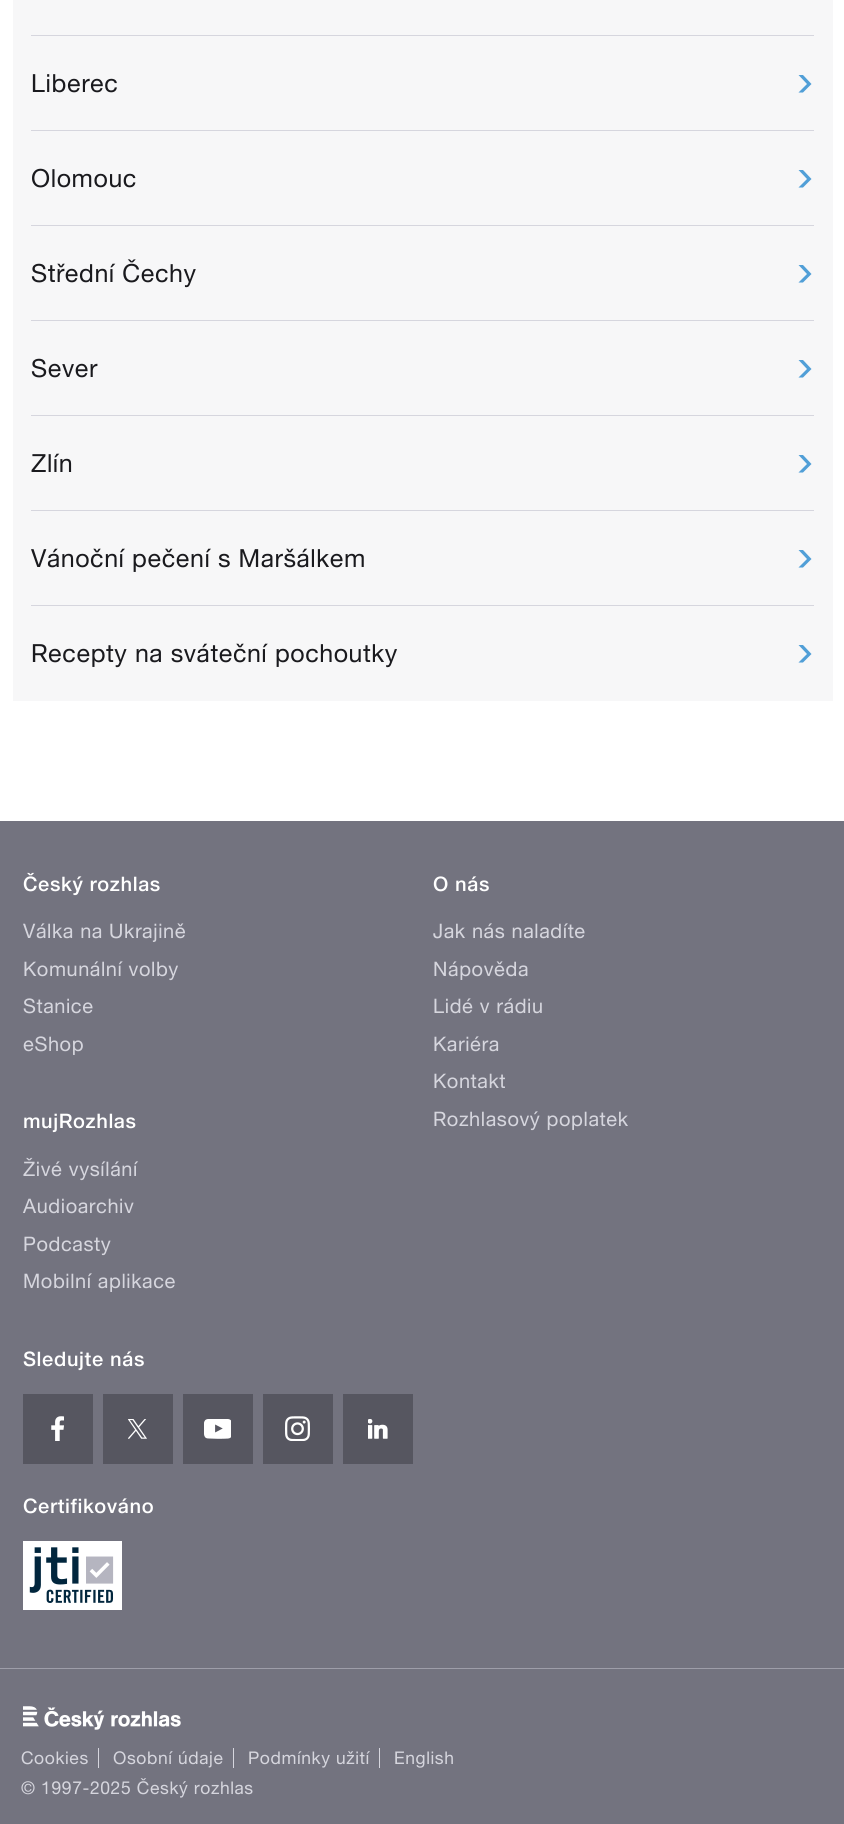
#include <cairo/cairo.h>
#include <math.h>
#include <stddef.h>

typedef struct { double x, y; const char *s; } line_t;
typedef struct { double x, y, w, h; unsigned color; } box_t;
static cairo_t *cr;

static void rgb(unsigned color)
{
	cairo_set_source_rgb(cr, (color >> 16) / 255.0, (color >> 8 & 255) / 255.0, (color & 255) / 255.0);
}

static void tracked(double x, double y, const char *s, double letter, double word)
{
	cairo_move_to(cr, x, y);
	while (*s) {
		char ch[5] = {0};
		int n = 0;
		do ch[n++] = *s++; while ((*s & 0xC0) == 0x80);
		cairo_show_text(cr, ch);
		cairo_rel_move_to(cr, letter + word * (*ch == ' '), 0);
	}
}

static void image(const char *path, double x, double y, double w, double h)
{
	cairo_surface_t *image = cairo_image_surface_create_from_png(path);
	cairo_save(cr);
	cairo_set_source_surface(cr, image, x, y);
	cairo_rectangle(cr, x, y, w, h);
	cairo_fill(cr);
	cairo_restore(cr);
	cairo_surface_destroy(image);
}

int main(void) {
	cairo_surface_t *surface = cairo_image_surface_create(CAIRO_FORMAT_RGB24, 844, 1824);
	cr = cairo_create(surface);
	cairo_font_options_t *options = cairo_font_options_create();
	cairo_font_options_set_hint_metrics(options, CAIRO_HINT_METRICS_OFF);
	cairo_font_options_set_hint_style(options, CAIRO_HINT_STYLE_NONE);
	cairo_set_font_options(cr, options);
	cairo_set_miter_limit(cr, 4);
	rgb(0xffffff);
	cairo_paint(cr);
	rgb(0xf7f7f8);
	cairo_rectangle(cr, 13, 0, 820, 701);
	cairo_fill(cr);
	rgb(0xd6d6de);
	cairo_rectangle(cr, 31, 35, 783, 1);
	cairo_fill(cr);
	rgb(0x519fd7);
	cairo_new_path(cr);
	cairo_move_to(cr, 803, 92.5);
	cairo_line_to(cr, 798.5, 92.5);
	cairo_line_to(cr, 807, 84);
	cairo_line_to(cr, 798.5, 75);
	cairo_line_to(cr, 803, 75);
	cairo_line_to(cr, 811.5, 84);
	cairo_close_path(cr);
	cairo_fill(cr);
	rgb(0xd6d6de);
	cairo_rectangle(cr, 31, 130, 783, 1);
	cairo_fill(cr);
	rgb(0x519fd7);
	cairo_new_path(cr);
	cairo_move_to(cr, 803, 187.5);
	cairo_line_to(cr, 798.5, 187.5);
	cairo_line_to(cr, 807, 179);
	cairo_line_to(cr, 798.5, 170);
	cairo_line_to(cr, 803, 170);
	cairo_line_to(cr, 811.5, 179);
	cairo_close_path(cr);
	cairo_fill(cr);
	rgb(0xd6d6de);
	cairo_rectangle(cr, 31, 225, 783, 1);
	cairo_fill(cr);
	rgb(0x519fd7);
	cairo_new_path(cr);
	cairo_move_to(cr, 803, 282.5);
	cairo_line_to(cr, 798.5, 282.5);
	cairo_line_to(cr, 807, 274);
	cairo_line_to(cr, 798.5, 265);
	cairo_line_to(cr, 803, 265);
	cairo_line_to(cr, 811.5, 274);
	cairo_close_path(cr);
	cairo_fill(cr);
	rgb(0xd6d6de);
	cairo_rectangle(cr, 31, 320, 783, 1);
	cairo_fill(cr);
	rgb(0x519fd7);
	cairo_new_path(cr);
	cairo_move_to(cr, 803, 377.5);
	cairo_line_to(cr, 798.5, 377.5);
	cairo_line_to(cr, 807, 369);
	cairo_line_to(cr, 798.5, 360);
	cairo_line_to(cr, 803, 360);
	cairo_line_to(cr, 811.5, 369);
	cairo_close_path(cr);
	cairo_fill(cr);
	rgb(0xd6d6de);
	cairo_rectangle(cr, 31, 415, 783, 1);
	cairo_fill(cr);
	rgb(0x519fd7);
	cairo_new_path(cr);
	cairo_move_to(cr, 803, 472.5);
	cairo_line_to(cr, 798.5, 472.5);
	cairo_line_to(cr, 807, 464);
	cairo_line_to(cr, 798.5, 455);
	cairo_line_to(cr, 803, 455);
	cairo_line_to(cr, 811.5, 464);
	cairo_close_path(cr);
	cairo_fill(cr);
	rgb(0xd6d6de);
	cairo_rectangle(cr, 31, 510, 783, 1);
	cairo_fill(cr);
	rgb(0x519fd7);
	cairo_new_path(cr);
	cairo_move_to(cr, 803, 567.5);
	cairo_line_to(cr, 798.5, 567.5);
	cairo_line_to(cr, 807, 559);
	cairo_line_to(cr, 798.5, 550);
	cairo_line_to(cr, 803, 550);
	cairo_line_to(cr, 811.5, 559);
	cairo_close_path(cr);
	cairo_fill(cr);
	rgb(0xd6d6de);
	cairo_rectangle(cr, 31, 605, 783, 1);
	cairo_fill(cr);
	rgb(0x519fd7);
	cairo_new_path(cr);
	cairo_move_to(cr, 803, 662.5);
	cairo_line_to(cr, 798.5, 662.5);
	cairo_line_to(cr, 807, 654);
	cairo_line_to(cr, 798.5, 645);
	cairo_line_to(cr, 803, 645);
	cairo_line_to(cr, 811.5, 654);
	cairo_close_path(cr);
	cairo_fill(cr);
	rgb(0x73737f);
	cairo_rectangle(cr, 0, 821, 844, 1003);
	cairo_fill(cr);
	rgb(0x565660);
	cairo_rectangle(cr, 23, 1394, 70, 70);
	cairo_fill(cr);
	image("img/1.png", 51, 1416, 13, 25);
	cairo_rectangle(cr, 103, 1394, 70, 70);
	cairo_fill(cr);
	image("img/2.png", 128, 1419, 19, 20);
	cairo_rectangle(cr, 183, 1394, 70, 70);
	cairo_fill(cr);
	image("img/3.png", 204, 1419, 27, 20);
	cairo_rectangle(cr, 263, 1394, 70, 70);
	cairo_fill(cr);
	image("img/4.png", 285, 1416, 25, 25);
	cairo_rectangle(cr, 343, 1394, 70, 70);
	cairo_fill(cr);
	image("img/5.png", 368, 1419, 20, 20);
	image("img/6.png", 23, 1541, 99, 69);
	rgb(0x9e9ea9);
	cairo_rectangle(cr, 0, 1668, 844, 1);
	cairo_fill(cr);
	image("img/7.png", 23, 1706, 158, 24);
	{
		static const box_t items[] = {
			{98, 1748, 1, 20, 0xd6d6de},
			{233, 1748, 1, 20, 0xd6d6de},
			{379, 1748, 1, 20, 0xd6d6de},
		};
		for (size_t i = 0; i < sizeof items / sizeof *items; i++) {
			rgb(items[i].color);
			cairo_rectangle(cr, items[i].x, items[i].y, items[i].w, items[i].h);
			cairo_fill(cr);
		}
	}
	cairo_select_font_face(cr, "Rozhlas", CAIRO_FONT_SLANT_NORMAL, CAIRO_FONT_WEIGHT_NORMAL);
	cairo_set_font_size(cr, 25);
	rgb(0x1a1a1e);
	{
		static const line_t items[] = {
			{31, 92, "Liberec"},
			{31, 187, "Olomouc"},
			{31, 282, "Střední Čechy"},
			{31, 377, "Sever"},
			{31, 472, "Zlín"},
			{31, 567, "Vánoční pečení s Maršálkem"},
			{31, 662, "Recepty na sváteční pochoutky"},
		};
		for (size_t i = 0; i < sizeof items / sizeof *items; i++) {
			tracked(items[i].x, items[i].y, items[i].s, 0.6, 0);
		}
	}
	cairo_select_font_face(cr, "Rozhlas Medium", CAIRO_FONT_SLANT_NORMAL, CAIRO_FONT_WEIGHT_NORMAL);
	cairo_set_font_size(cr, 20);
	rgb(0xffffff);
	tracked(23, 891, "Český rozhlas", 0.6, 0);
	cairo_select_font_face(cr, "Rozhlas", CAIRO_FONT_SLANT_NORMAL, CAIRO_FONT_WEIGHT_NORMAL);
	rgb(0xd6d6de);
	{
		static const line_t items[] = {
			{23, 938, "Válka na Ukrajině"},
			{23, 976, "Komunální volby"},
			{23, 1013, "Stanice"},
			{23, 1051, "eShop"},
		};
		for (size_t i = 0; i < sizeof items / sizeof *items; i++) {
			tracked(items[i].x, items[i].y, items[i].s, 0.6, 0);
		}
	}
	cairo_select_font_face(cr, "Rozhlas Medium", CAIRO_FONT_SLANT_NORMAL, CAIRO_FONT_WEIGHT_NORMAL);
	rgb(0xffffff);
	tracked(23, 1128, "mujRozhlas", 0.6, 0);
	cairo_select_font_face(cr, "Rozhlas", CAIRO_FONT_SLANT_NORMAL, CAIRO_FONT_WEIGHT_NORMAL);
	rgb(0xd6d6de);
	{
		static const line_t items[] = {
			{23, 1176, "Živé vysílání"},
			{23, 1213, "Audioarchiv"},
			{23, 1251, "Podcasty"},
			{23, 1288, "Mobilní aplikace"},
		};
		for (size_t i = 0; i < sizeof items / sizeof *items; i++) {
			tracked(items[i].x, items[i].y, items[i].s, 0.6, 0);
		}
	}
	cairo_select_font_face(cr, "Rozhlas Medium", CAIRO_FONT_SLANT_NORMAL, CAIRO_FONT_WEIGHT_NORMAL);
	rgb(0xffffff);
	tracked(433, 891, "O nás", 0.6, 0);
	cairo_select_font_face(cr, "Rozhlas", CAIRO_FONT_SLANT_NORMAL, CAIRO_FONT_WEIGHT_NORMAL);
	rgb(0xd6d6de);
	{
		static const line_t items[] = {
			{433, 938, "Jak nás naladíte"},
			{433, 976, "Nápověda"},
			{433, 1013, "Lidé v rádiu"},
			{433, 1051, "Kariéra"},
			{433, 1088, "Kontakt"},
			{433, 1126, "Rozhlasový poplatek"},
		};
		for (size_t i = 0; i < sizeof items / sizeof *items; i++) {
			tracked(items[i].x, items[i].y, items[i].s, 0.6, 0);
		}
	}
	cairo_select_font_face(cr, "Rozhlas Medium", CAIRO_FONT_SLANT_NORMAL, CAIRO_FONT_WEIGHT_NORMAL);
	rgb(0xffffff);
	tracked(23, 1366, "Sledujte nás", 0.6, 0);
	tracked(23, 1513, "Certifikováno", 0.6, 0);
	cairo_select_font_face(cr, "Rozhlas", CAIRO_FONT_SLANT_NORMAL, CAIRO_FONT_WEIGHT_NORMAL);
	cairo_set_font_size(cr, 17.5);
	rgb(0xd6d6de);
	{
		static const line_t items[] = {
			{21, 1764, "Cookies"},
			{113, 1764, "Osobní údaje"},
			{248, 1764, "Podmínky užití"},
			{394, 1764, "English"},
			{21, 1794, "© 1997-2025 Český rozhlas"},
		};
		for (size_t i = 0; i < sizeof items / sizeof *items; i++) {
			tracked(items[i].x, items[i].y, items[i].s, 0.6, 0);
		}
	}
	cairo_surface_write_to_png(surface, "page.png");
	cairo_font_options_destroy(options);
	cairo_destroy(cr);
	cairo_surface_destroy(surface);
	return 0;
}
